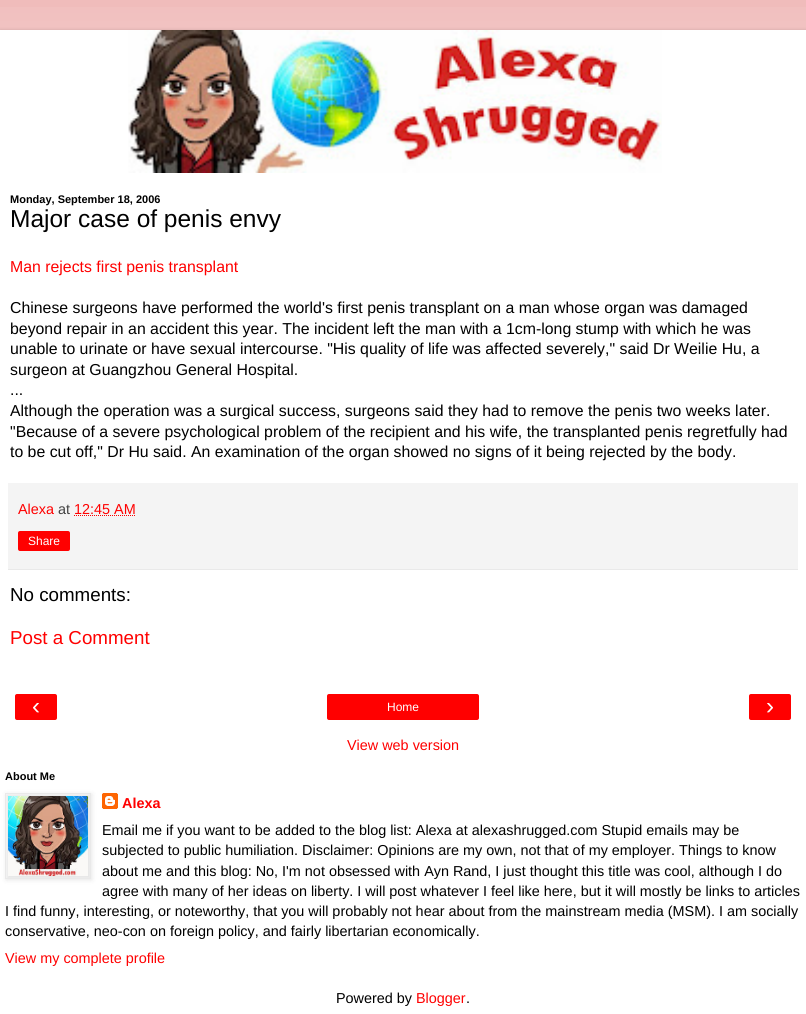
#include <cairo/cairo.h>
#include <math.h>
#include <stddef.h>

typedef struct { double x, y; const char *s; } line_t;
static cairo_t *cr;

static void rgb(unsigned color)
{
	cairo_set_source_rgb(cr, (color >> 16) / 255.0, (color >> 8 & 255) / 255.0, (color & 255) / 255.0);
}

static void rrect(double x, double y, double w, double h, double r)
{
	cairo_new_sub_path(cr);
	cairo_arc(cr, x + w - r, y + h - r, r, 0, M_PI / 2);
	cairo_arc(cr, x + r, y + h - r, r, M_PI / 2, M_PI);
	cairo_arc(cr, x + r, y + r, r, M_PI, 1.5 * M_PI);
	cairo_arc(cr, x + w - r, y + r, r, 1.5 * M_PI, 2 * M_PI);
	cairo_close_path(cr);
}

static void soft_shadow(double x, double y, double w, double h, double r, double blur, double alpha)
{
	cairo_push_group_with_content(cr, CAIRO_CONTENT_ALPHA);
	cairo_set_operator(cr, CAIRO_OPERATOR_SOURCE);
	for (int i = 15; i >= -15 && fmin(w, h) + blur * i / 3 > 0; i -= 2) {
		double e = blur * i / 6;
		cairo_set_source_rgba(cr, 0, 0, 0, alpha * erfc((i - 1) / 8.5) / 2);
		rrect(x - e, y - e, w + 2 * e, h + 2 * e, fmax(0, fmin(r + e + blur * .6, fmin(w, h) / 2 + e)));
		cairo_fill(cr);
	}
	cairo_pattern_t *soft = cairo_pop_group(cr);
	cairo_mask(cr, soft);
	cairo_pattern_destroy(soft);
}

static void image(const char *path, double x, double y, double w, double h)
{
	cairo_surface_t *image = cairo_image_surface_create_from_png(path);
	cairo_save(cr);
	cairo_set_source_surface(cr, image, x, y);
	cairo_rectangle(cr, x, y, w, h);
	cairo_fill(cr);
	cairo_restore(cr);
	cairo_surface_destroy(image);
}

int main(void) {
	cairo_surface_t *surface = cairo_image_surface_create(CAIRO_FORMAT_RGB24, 806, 1014);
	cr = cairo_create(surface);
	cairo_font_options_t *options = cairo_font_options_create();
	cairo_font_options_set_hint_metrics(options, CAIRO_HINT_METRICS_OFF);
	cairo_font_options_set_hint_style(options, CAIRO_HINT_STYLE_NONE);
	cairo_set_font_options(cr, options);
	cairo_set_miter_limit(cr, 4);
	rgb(0xf0bcbb);
	cairo_paint(cr);
	image("img/1.png", 0, 7, 806, 23);
	rgb(0x000000);
	soft_shadow(0, 30, 806, 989, 0, 1.5, 0.15);
	rgb(0xffffff);
	cairo_rectangle(cr, 0, 30, 806, 984);
	cairo_fill(cr);
	image("img/2.png", 128, 30, 534, 143);
	rgb(0xf4f4f4);
	cairo_rectangle(cr, 8, 483, 790, 86);
	cairo_fill(cr);
	rgb(0xe9e9e9);
	cairo_rectangle(cr, 8, 569, 790, 1);
	cairo_fill(cr);
	cairo_new_path(cr);
	cairo_move_to(cr, 74, 515.5);
	cairo_line_to(cr, 135.5, 515.5);
	rgb(0xff0000);
	cairo_set_line_width(cr, 1);
	cairo_set_dash(cr, (double[]){1, 1}, 2, 0);
	cairo_stroke(cr);
	rrect(18, 531, 52, 20, 2);
	cairo_fill(cr);
	rrect(15, 694, 42, 26, 2);
	cairo_fill(cr);
	rrect(327, 694, 152, 26, 2);
	cairo_fill(cr);
	rrect(749, 694, 42, 26, 2);
	cairo_fill(cr);
	rgb(0x000000);
	soft_shadow(6, 794, 86, 86, 0, 2.5, 0.1);
	cairo_rectangle(cr, 5.5, 793.5, 85, 85);
	rgb(0xe9e9e9);
	cairo_set_dash(cr, NULL, 0, 0);
	cairo_stroke(cr);
	image("img/3.png", 8, 796, 80, 80);
	image("img/4.png", 102, 793, 16, 16);
	cairo_select_font_face(cr, "Liberation Sans", CAIRO_FONT_SLANT_NORMAL, CAIRO_FONT_WEIGHT_BOLD);
	cairo_set_font_size(cr, 11);
	rgb(0x000000);
	cairo_move_to(cr, 10, 203);
	cairo_show_text(cr, "Monday, September 18, 2006");
	cairo_select_font_face(cr, "Liberation Sans", CAIRO_FONT_SLANT_NORMAL, CAIRO_FONT_WEIGHT_NORMAL);
	cairo_set_font_size(cr, 24.5);
	cairo_move_to(cr, 10, 227);
	cairo_show_text(cr, "Major case of penis envy");
	cairo_set_font_size(cr, 15.85);
	rgb(0xff0000);
	cairo_move_to(cr, 10, 272);
	cairo_show_text(cr, "Man rejects first penis transplant");
	rgb(0x000000);
	{
		static const line_t items[] = {
			{10, 313, "Chinese surgeons have performed the world's first penis transplant on a man whose organ was damaged"},
			{10, 334, "beyond repair in an accident this year. The incident left the man with a 1cm-long stump with which he was"},
			{10, 354, "unable to urinate or have sexual intercourse. \"His quality of life was affected severely,\" said Dr Weilie Hu, a"},
			{10, 375, "surgeon at Guangzhou General Hospital."},
			{10, 395, "..."},
			{10, 416, "Although the operation was a surgical success, surgeons said they had to remove the penis two weeks later."},
			{10, 437, "\"Because of a severe psychological problem of the recipient and his wife, the transplanted penis regretfully had"},
			{10, 457, "to be cut off,\" Dr Hu said. An examination of the organ showed no signs of it being rejected by the body."},
		};
		for (size_t i = 0; i < sizeof items / sizeof *items; i++) {
			cairo_move_to(cr, items[i].x, items[i].y);
			cairo_show_text(cr, items[i].s);
		}
	}
	cairo_set_font_size(cr, 14.4);
	rgb(0xff0000);
	cairo_move_to(cr, 18, 514);
	cairo_show_text(cr, "Alexa");
	rgb(0x424242);
	cairo_move_to(cr, 58, 514);
	cairo_show_text(cr, "at");
	rgb(0xff0000);
	cairo_move_to(cr, 74, 514);
	cairo_show_text(cr, "12:45 AM");
	cairo_set_font_size(cr, 12);
	rgb(0xffffff);
	cairo_move_to(cr, 28, 545);
	cairo_show_text(cr, "Share");
	cairo_set_font_size(cr, 18.75);
	rgb(0x000000);
	cairo_move_to(cr, 10, 601);
	cairo_show_text(cr, "No comments:");
	rgb(0xff0000);
	cairo_move_to(cr, 10, 644);
	cairo_show_text(cr, "Post a Comment");
	cairo_set_font_size(cr, 24);
	rgb(0xffffff);
	cairo_move_to(cr, 32, 714);
	cairo_show_text(cr, "‹");
	cairo_set_font_size(cr, 12);
	cairo_move_to(cr, 387, 711);
	cairo_show_text(cr, "Home");
	cairo_set_font_size(cr, 24);
	cairo_move_to(cr, 766, 714);
	cairo_show_text(cr, "›");
	cairo_set_font_size(cr, 14.4);
	rgb(0xff0000);
	cairo_move_to(cr, 347, 750);
	cairo_show_text(cr, "View web version");
	cairo_select_font_face(cr, "Liberation Sans", CAIRO_FONT_SLANT_NORMAL, CAIRO_FONT_WEIGHT_BOLD);
	cairo_set_font_size(cr, 11);
	rgb(0x000000);
	cairo_move_to(cr, 5, 780);
	cairo_show_text(cr, "About Me");
	cairo_set_font_size(cr, 14.4);
	rgb(0xff0000);
	cairo_move_to(cr, 122, 808);
	cairo_show_text(cr, "Alexa");
	cairo_select_font_face(cr, "Liberation Sans", CAIRO_FONT_SLANT_NORMAL, CAIRO_FONT_WEIGHT_NORMAL);
	rgb(0x000000);
	{
		static const line_t items[] = {
			{102, 835, "Email me if you want to be added to the blog list: Alexa at alexashrugged.com Stupid emails may be"},
			{102, 855, "subjected to public humiliation. Disclaimer: Opinions are my own, not that of my employer. Things to know"},
			{102, 876, "about me and this blog: No, I'm not obsessed with Ayn Rand, I just thought this title was cool, although I do"},
			{102, 896, "agree with many of her ideas on liberty. I will post whatever I feel like here, but it will mostly be links to articles"},
			{5, 916, "I find funny, interesting, or noteworthy, that you will probably not hear about from the mainstream media (MSM). I am socially"},
			{5, 936, "conservative, neo-con on foreign policy, and fairly libertarian economically."},
		};
		for (size_t i = 0; i < sizeof items / sizeof *items; i++) {
			cairo_move_to(cr, items[i].x, items[i].y);
			cairo_show_text(cr, items[i].s);
		}
	}
	rgb(0xff0000);
	cairo_move_to(cr, 5, 963);
	cairo_show_text(cr, "View my complete profile");
	rgb(0x000000);
	cairo_move_to(cr, 336, 1003);
	cairo_show_text(cr, "Powered by");
	rgb(0xff0000);
	cairo_move_to(cr, 416, 1003);
	cairo_show_text(cr, "Blogger");
	rgb(0x000000);
	cairo_move_to(cr, 466, 1003);
	cairo_show_text(cr, ".");
	cairo_surface_write_to_png(surface, "page.png");
	cairo_font_options_destroy(options);
	cairo_destroy(cr);
	cairo_surface_destroy(surface);
	return 0;
}
